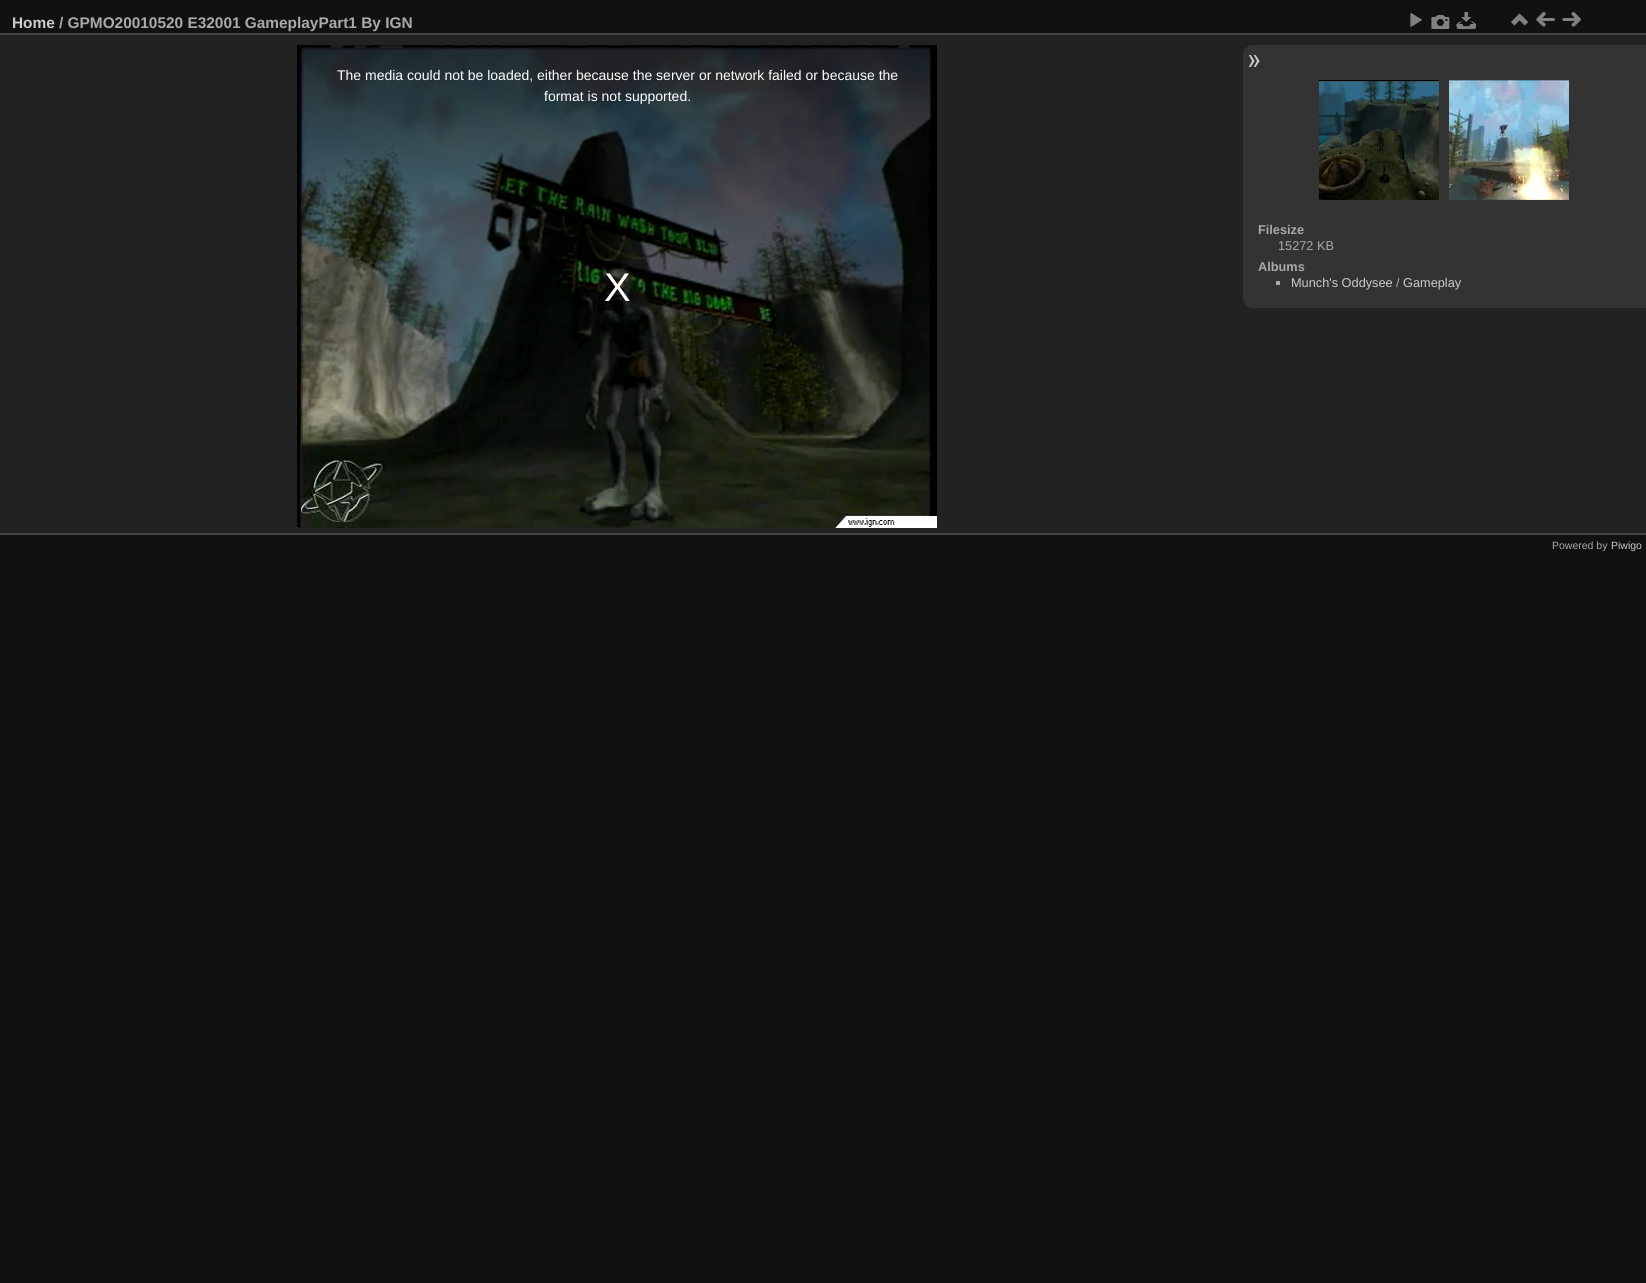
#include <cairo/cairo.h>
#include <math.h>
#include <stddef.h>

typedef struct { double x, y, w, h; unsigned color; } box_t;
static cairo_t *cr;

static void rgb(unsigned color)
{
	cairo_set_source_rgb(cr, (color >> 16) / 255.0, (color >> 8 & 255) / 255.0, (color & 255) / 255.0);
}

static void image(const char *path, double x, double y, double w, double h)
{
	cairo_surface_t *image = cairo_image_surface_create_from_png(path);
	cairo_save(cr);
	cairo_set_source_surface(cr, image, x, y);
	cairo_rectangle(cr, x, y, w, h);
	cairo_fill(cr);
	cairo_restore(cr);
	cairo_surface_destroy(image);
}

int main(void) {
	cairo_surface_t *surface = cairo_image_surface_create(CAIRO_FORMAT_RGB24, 1646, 1283);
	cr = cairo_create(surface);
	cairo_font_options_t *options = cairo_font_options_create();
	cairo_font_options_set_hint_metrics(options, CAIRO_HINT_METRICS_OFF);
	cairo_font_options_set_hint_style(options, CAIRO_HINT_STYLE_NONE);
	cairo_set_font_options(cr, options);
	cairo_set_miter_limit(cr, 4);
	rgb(0x111111);
	cairo_paint(cr);
	{
		static const box_t items[] = {
			{0, 35, 1646, 498, 0x222222},
			{0, 533, 1646, 2, 0x444444},
			{0, 33, 1646, 2, 0x444444},
		};
		for (size_t i = 0; i < sizeof items / sizeof *items; i++) {
			rgb(items[i].color);
			cairo_rectangle(cr, items[i].x, items[i].y, items[i].w, items[i].h);
			cairo_fill(cr);
		}
	}
	image("img/1.png", 1410, 13, 12, 14);
	image("img/2.png", 1431, 15, 19, 14);
	image("img/3.png", 1456, 12, 21, 17);
	image("img/4.png", 1511, 13, 17, 13);
	image("img/5.png", 1536, 12, 19, 15);
	image("img/6.png", 1562, 12, 19, 15);
	rgb(0x333333);
	cairo_new_path(cr);
	cairo_move_to(cr, 1253, 45);
	cairo_line_to(cr, 1646, 45);
	cairo_line_to(cr, 1646, 308);
	cairo_line_to(cr, 1253, 308);
	cairo_curve_to(cr, 1247.5, 308, 1243, 303.5, 1243, 298);
	cairo_line_to(cr, 1243, 55);
	cairo_curve_to(cr, 1243, 49.5, 1247.5, 45, 1253, 45);
	cairo_close_path(cr);
	cairo_fill(cr);
	image("img/7.png", 1248, 55, 12, 12);
	image("img/8.png", 297, 45, 640, 483);
	image("img/9.png", 1319, 80, 120, 120);
	image("img/10.png", 1449, 80, 120, 120);
	rgb(0xaaaaaa);
	cairo_rectangle(cr, 1276, 281, 4, 4);
	cairo_fill(cr);
	cairo_select_font_face(cr, "Liberation Sans", CAIRO_FONT_SLANT_NORMAL, CAIRO_FONT_WEIGHT_BOLD);
	cairo_set_font_size(cr, 15.4);
	rgb(0xcccccc);
	cairo_move_to(cr, 12, 28);
	cairo_show_text(cr, "Home");
	rgb(0xaaaaaa);
	cairo_move_to(cr, 59, 28);
	cairo_show_text(cr, "/ GPMO20010520 E32001 GameplayPart1 By IGN");
	cairo_select_font_face(cr, "Liberation Sans", CAIRO_FONT_SLANT_NORMAL, CAIRO_FONT_WEIGHT_NORMAL);
	cairo_set_font_size(cr, 14);
	rgb(0xffffff);
	cairo_move_to(cr, 337, 80);
	cairo_show_text(cr, "The media could not be loaded, either because the server or network failed or because the");
	cairo_move_to(cr, 544, 101);
	cairo_show_text(cr, "format is not supported.");
	cairo_set_font_size(cr, 40);
	cairo_move_to(cr, 604, 301);
	cairo_show_text(cr, "X");
	cairo_select_font_face(cr, "Liberation Sans", CAIRO_FONT_SLANT_NORMAL, CAIRO_FONT_WEIGHT_BOLD);
	cairo_set_font_size(cr, 12.75);
	rgb(0xaaaaaa);
	cairo_move_to(cr, 1258, 234);
	cairo_show_text(cr, "Filesize");
	cairo_select_font_face(cr, "Liberation Sans", CAIRO_FONT_SLANT_NORMAL, CAIRO_FONT_WEIGHT_NORMAL);
	cairo_move_to(cr, 1278, 250);
	cairo_show_text(cr, "15272 KB");
	cairo_select_font_face(cr, "Liberation Sans", CAIRO_FONT_SLANT_NORMAL, CAIRO_FONT_WEIGHT_BOLD);
	cairo_move_to(cr, 1258, 271);
	cairo_show_text(cr, "Albums");
	cairo_select_font_face(cr, "Liberation Sans", CAIRO_FONT_SLANT_NORMAL, CAIRO_FONT_WEIGHT_NORMAL);
	rgb(0xcccccc);
	cairo_move_to(cr, 1291, 287);
	cairo_show_text(cr, "Munch's Oddysee");
	rgb(0xaaaaaa);
	cairo_move_to(cr, 1396, 287);
	cairo_show_text(cr, "/");
	rgb(0xcccccc);
	cairo_move_to(cr, 1403, 287);
	cairo_show_text(cr, "Gameplay");
	cairo_set_font_size(cr, 10.5);
	rgb(0xaaaaaa);
	cairo_move_to(cr, 1552, 549);
	cairo_show_text(cr, "Powered by");
	rgb(0xcccccc);
	cairo_move_to(cr, 1611, 549);
	cairo_show_text(cr, "Piwigo");
	cairo_surface_write_to_png(surface, "page.png");
	cairo_font_options_destroy(options);
	cairo_destroy(cr);
	cairo_surface_destroy(surface);
	return 0;
}
